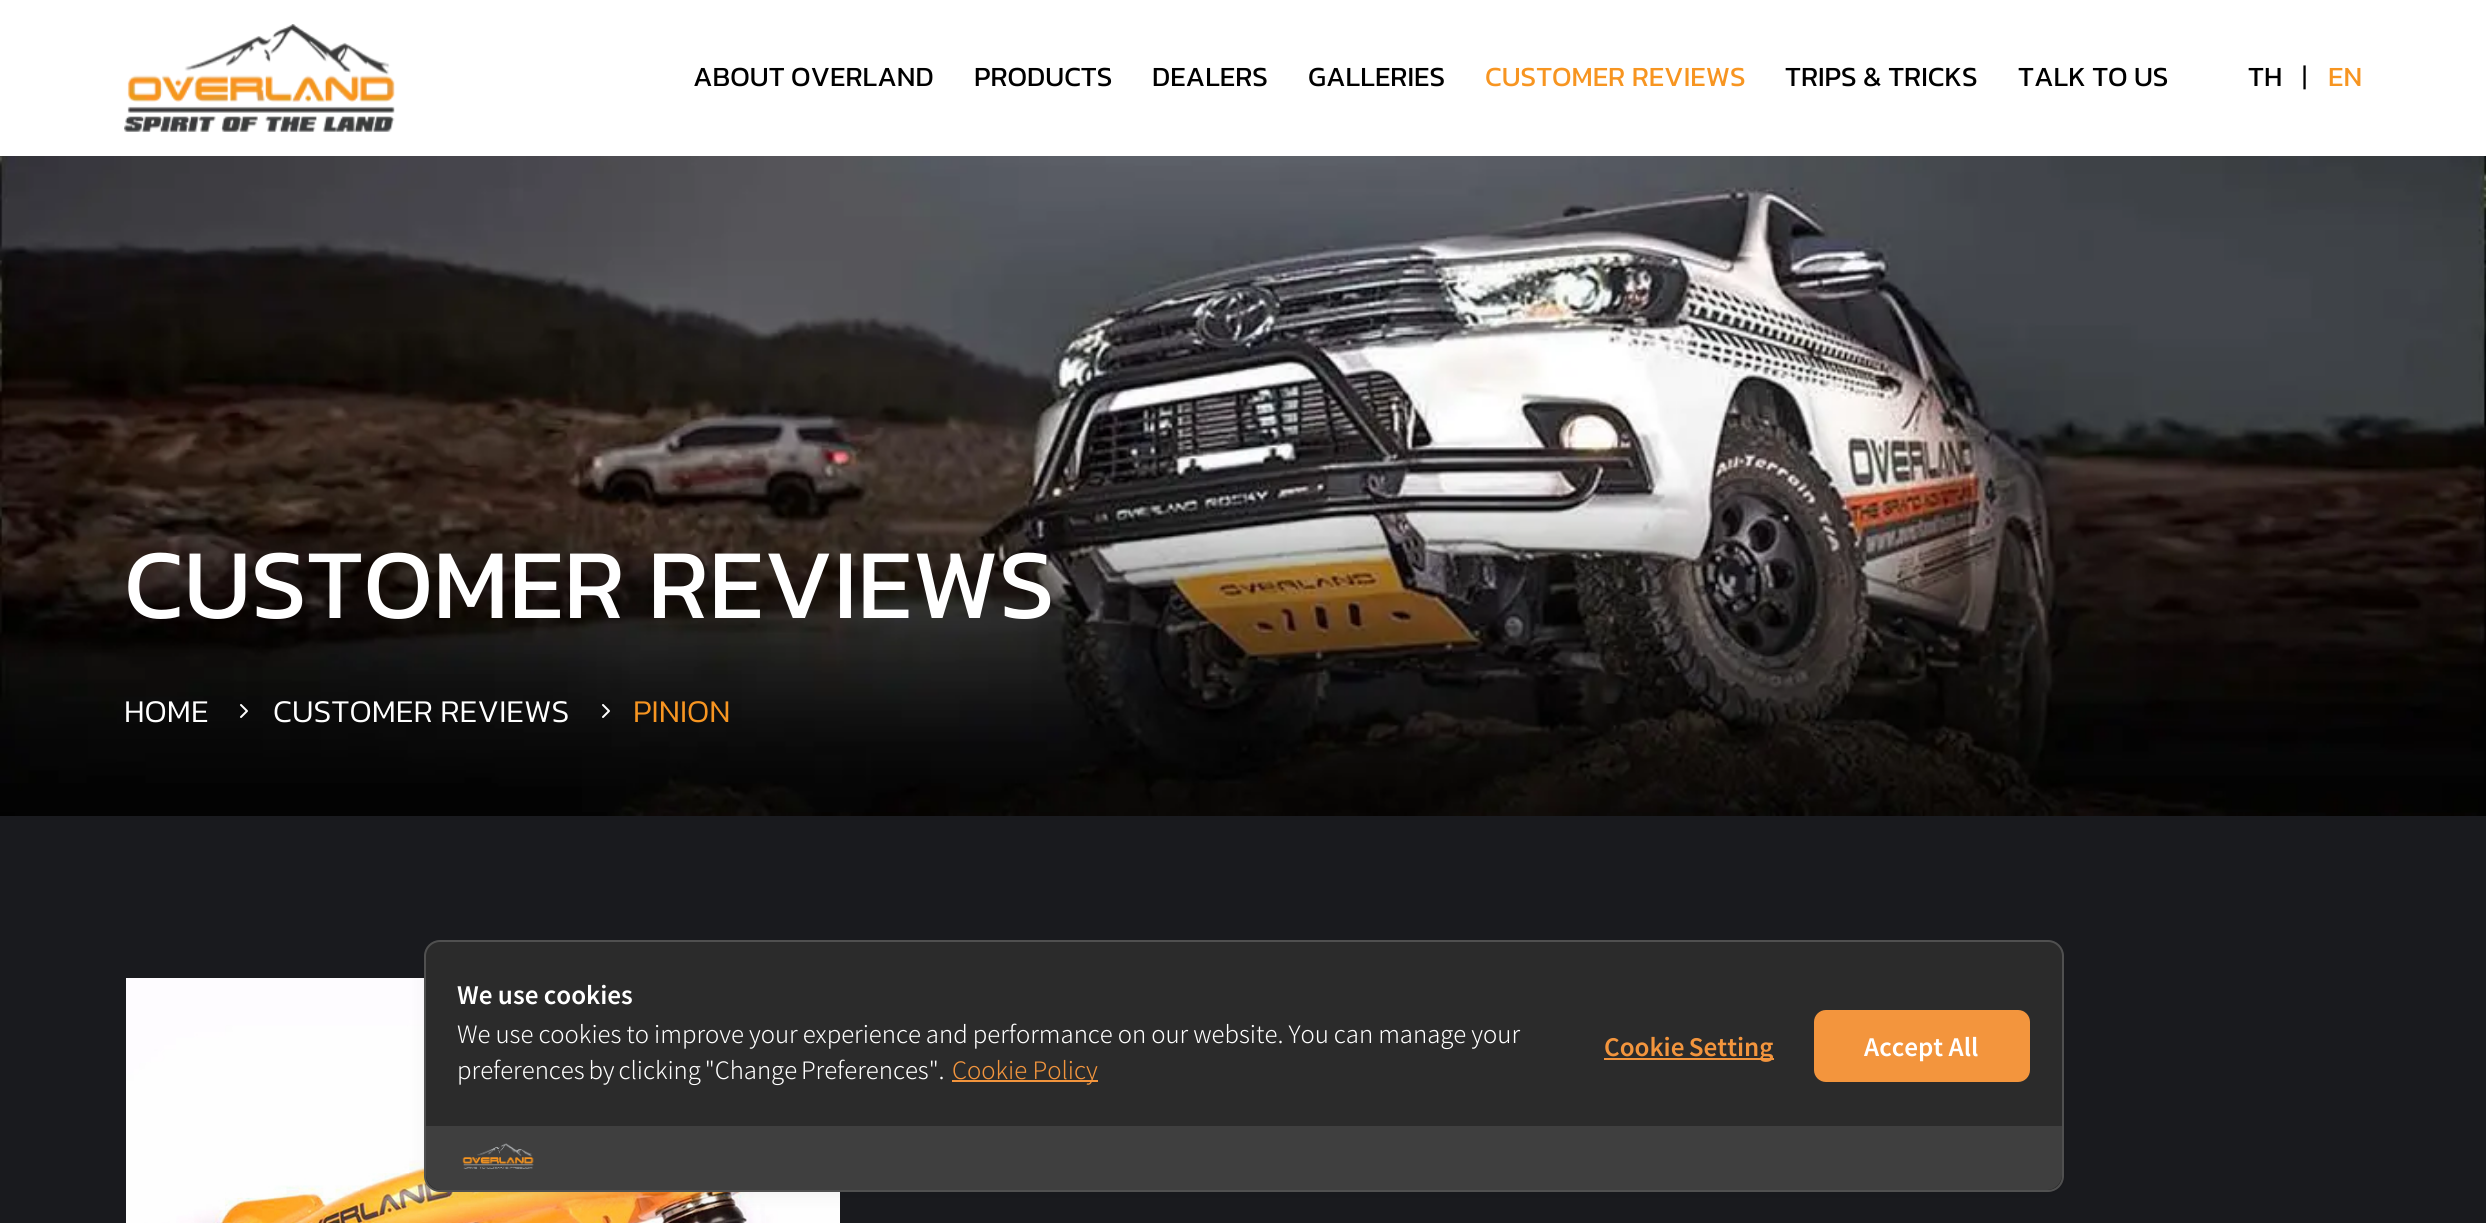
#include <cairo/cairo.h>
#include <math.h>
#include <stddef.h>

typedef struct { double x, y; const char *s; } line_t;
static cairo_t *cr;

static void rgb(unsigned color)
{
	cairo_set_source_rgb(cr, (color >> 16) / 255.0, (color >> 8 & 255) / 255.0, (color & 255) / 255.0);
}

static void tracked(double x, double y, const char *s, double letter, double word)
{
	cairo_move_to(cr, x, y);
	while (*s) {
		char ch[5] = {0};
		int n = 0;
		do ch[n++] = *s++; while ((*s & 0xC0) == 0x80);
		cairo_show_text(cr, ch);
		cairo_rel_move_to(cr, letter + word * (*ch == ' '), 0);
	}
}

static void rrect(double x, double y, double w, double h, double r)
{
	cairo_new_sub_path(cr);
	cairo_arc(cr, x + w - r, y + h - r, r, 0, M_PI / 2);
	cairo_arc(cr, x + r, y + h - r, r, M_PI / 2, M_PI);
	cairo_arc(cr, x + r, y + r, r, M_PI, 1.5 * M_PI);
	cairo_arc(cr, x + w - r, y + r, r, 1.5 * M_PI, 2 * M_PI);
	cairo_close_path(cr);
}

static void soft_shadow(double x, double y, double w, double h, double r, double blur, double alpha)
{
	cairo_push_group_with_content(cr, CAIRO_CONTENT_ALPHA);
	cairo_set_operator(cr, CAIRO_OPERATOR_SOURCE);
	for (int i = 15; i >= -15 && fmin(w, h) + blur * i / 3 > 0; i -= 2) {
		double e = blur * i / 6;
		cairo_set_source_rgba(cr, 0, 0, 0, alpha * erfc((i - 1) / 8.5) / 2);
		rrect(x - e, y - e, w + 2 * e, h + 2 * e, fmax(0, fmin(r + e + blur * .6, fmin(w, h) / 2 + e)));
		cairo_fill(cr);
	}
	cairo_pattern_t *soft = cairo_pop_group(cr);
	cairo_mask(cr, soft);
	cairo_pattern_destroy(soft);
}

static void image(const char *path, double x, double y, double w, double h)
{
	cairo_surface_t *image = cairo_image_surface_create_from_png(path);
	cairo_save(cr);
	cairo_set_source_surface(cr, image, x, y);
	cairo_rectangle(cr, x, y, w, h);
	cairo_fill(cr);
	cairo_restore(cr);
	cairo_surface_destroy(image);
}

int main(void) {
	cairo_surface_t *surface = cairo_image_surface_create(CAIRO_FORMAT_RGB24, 2486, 1223);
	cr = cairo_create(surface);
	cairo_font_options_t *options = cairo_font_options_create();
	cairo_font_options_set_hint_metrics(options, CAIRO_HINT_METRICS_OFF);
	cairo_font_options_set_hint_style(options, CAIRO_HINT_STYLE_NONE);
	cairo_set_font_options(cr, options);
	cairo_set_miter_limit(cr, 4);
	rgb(0x191a1e);
	cairo_paint(cr);
	rgb(0xffffff);
	cairo_rectangle(cr, 0, 0, 2486, 156);
	cairo_fill(cr);
	image("img/1.png", 124, 24, 271, 108);
	image("img/2.png", 0, 156, 2486, 660);
	image("img/3.png", 240, 704, 8, 14);
	image("img/4.png", 602, 704, 8, 14);
	image("img/5.png", 126, 978, 714, 245);
	rgb(0x000000);
	soft_shadow(424, 944, 1640, 252, 16, 8, 0.05);
	rgb(0x2b2b2b);
	rrect(425, 941, 1638, 250, 15);
	cairo_fill_preserve(cr);
	rgb(0x505050);
	cairo_stroke(cr);
	rgb(0xf3953d);
	cairo_rectangle(cr, 952, 1080, 146, 2);
	cairo_fill(cr);
	cairo_rectangle(cr, 1604, 1058, 170, 2);
	cairo_fill(cr);
	rrect(1814, 1010, 216, 72, 12);
	cairo_fill(cr);
	rgb(0x3f3f3f);
	cairo_new_path(cr);
	cairo_move_to(cr, 426, 1126);
	cairo_line_to(cr, 2062, 1126);
	cairo_line_to(cr, 2062, 1174);
	cairo_curve_to(cr, 2062, 1183, 2055, 1190, 2046, 1190);
	cairo_line_to(cr, 442, 1190);
	cairo_curve_to(cr, 433, 1190, 426, 1183, 426, 1174);
	cairo_close_path(cr);
	cairo_fill(cr);
	image("img/6.png", 462, 1143, 72, 26);
	cairo_select_font_face(cr, "Kanit", CAIRO_FONT_SLANT_NORMAL, CAIRO_FONT_WEIGHT_NORMAL);
	cairo_set_font_size(cr, 28);
	rgb(0x000000);
	{
		static const line_t items[] = {
			{693, 86, "ABOUT OVERLAND"},
			{974, 86, "PRODUCTS"},
			{1152, 86, "DEALERS"},
			{1308, 86, "GALLERIES"},
		};
		for (size_t i = 0; i < sizeof items / sizeof *items; i++) {
			cairo_move_to(cr, items[i].x, items[i].y);
			cairo_show_text(cr, items[i].s);
		}
	}
	rgb(0xf79521);
	cairo_move_to(cr, 1485, 86);
	cairo_show_text(cr, "CUSTOMER REVIEWS");
	rgb(0x000000);
	{
		static const line_t items[] = {
			{1785, 86, "TRIPS & TRICKS"},
			{2018, 86, "TALK TO US"},
			{2248, 86, "TH"},
		};
		for (size_t i = 0; i < sizeof items / sizeof *items; i++) {
			cairo_move_to(cr, items[i].x, items[i].y);
			cairo_show_text(cr, items[i].s);
		}
	}
	cairo_select_font_face(cr, "Kanit Light", CAIRO_FONT_SLANT_NORMAL, CAIRO_FONT_WEIGHT_NORMAL);
	cairo_move_to(cr, 2302, 86);
	cairo_show_text(cr, "|");
	cairo_select_font_face(cr, "Kanit", CAIRO_FONT_SLANT_NORMAL, CAIRO_FONT_WEIGHT_NORMAL);
	rgb(0xf79521);
	cairo_move_to(cr, 2328, 86);
	cairo_show_text(cr, "EN");
	cairo_set_font_size(cr, 100);
	rgb(0xffffff);
	cairo_move_to(cr, 124, 618);
	cairo_show_text(cr, "CUSTOMER REVIEWS");
	cairo_select_font_face(cr, "Kanit Light", CAIRO_FONT_SLANT_NORMAL, CAIRO_FONT_WEIGHT_NORMAL);
	cairo_set_font_size(cr, 32);
	cairo_move_to(cr, 124, 722);
	cairo_show_text(cr, "HOME");
	cairo_move_to(cr, 273, 722);
	cairo_show_text(cr, "CUSTOMER REVIEWS");
	rgb(0xf79521);
	cairo_move_to(cr, 633, 722);
	cairo_show_text(cr, "PINION");
	cairo_select_font_face(cr, "Noto Sans JP SemiBold", CAIRO_FONT_SLANT_NORMAL, CAIRO_FONT_WEIGHT_NORMAL);
	cairo_set_font_size(cr, 24);
	rgb(0xffffff);
	cairo_move_to(cr, 457, 1004);
	cairo_show_text(cr, "We use cookies");
	cairo_select_font_face(cr, "Noto Sans JP Light", CAIRO_FONT_SLANT_NORMAL, CAIRO_FONT_WEIGHT_NORMAL);
	tracked(457, 1043, "We use cookies to improve your experience and performance on our website. You can manage your", 0, -0.3);
	tracked(457, 1079, "preferences by clicking \"Change Preferences\".", 0, -1.5);
	rgb(0xf3953d);
	cairo_move_to(cr, 952, 1079);
	cairo_show_text(cr, "Cookie Policy");
	cairo_select_font_face(cr, "Noto Sans JP SemiBold", CAIRO_FONT_SLANT_NORMAL, CAIRO_FONT_WEIGHT_NORMAL);
	tracked(1604, 1056, "Cookie Setting", 0, -1);
	rgb(0xffffff);
	cairo_move_to(cr, 1864, 1056);
	cairo_show_text(cr, "Accept All");
	cairo_surface_write_to_png(surface, "page.png");
	cairo_font_options_destroy(options);
	cairo_destroy(cr);
	cairo_surface_destroy(surface);
	return 0;
}
